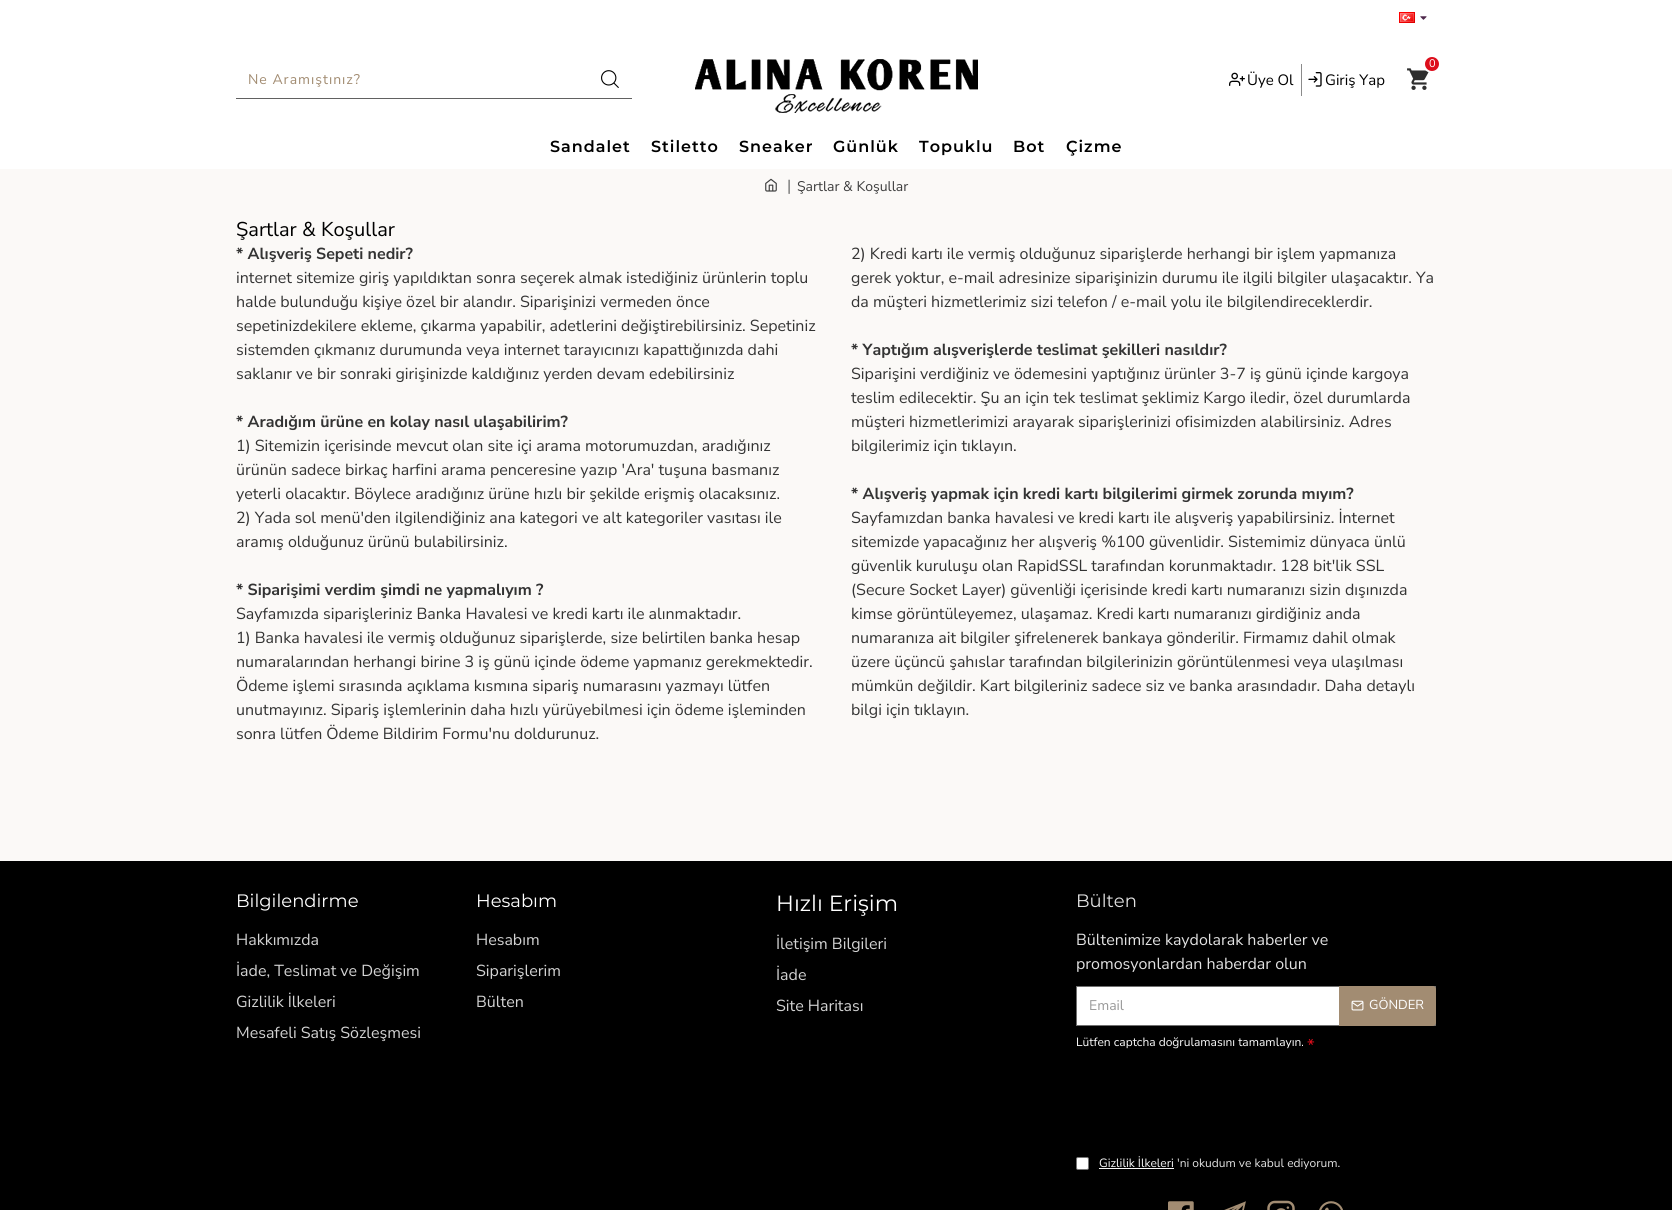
#include <cairo/cairo.h>
#include <math.h>
#include <stddef.h>

typedef struct { double x, y; const char *s; } line_t;
static cairo_t *cr;

static void rgb(unsigned color)
{
	cairo_set_source_rgb(cr, (color >> 16) / 255.0, (color >> 8 & 255) / 255.0, (color & 255) / 255.0);
}

static void tracked(double x, double y, const char *s, double letter, double word)
{
	cairo_move_to(cr, x, y);
	while (*s) {
		char ch[5] = {0};
		int n = 0;
		do ch[n++] = *s++; while ((*s & 0xC0) == 0x80);
		cairo_show_text(cr, ch);
		cairo_rel_move_to(cr, letter + word * (*ch == ' '), 0);
	}
}

static void rrect(double x, double y, double w, double h, double r)
{
	cairo_new_sub_path(cr);
	cairo_arc(cr, x + w - r, y + h - r, r, 0, M_PI / 2);
	cairo_arc(cr, x + r, y + h - r, r, M_PI / 2, M_PI);
	cairo_arc(cr, x + r, y + r, r, M_PI, 1.5 * M_PI);
	cairo_arc(cr, x + w - r, y + r, r, 1.5 * M_PI, 2 * M_PI);
	cairo_close_path(cr);
}

static void image(const char *path, double x, double y, double w, double h)
{
	cairo_surface_t *image = cairo_image_surface_create_from_png(path);
	cairo_save(cr);
	cairo_set_source_surface(cr, image, x, y);
	cairo_rectangle(cr, x, y, w, h);
	cairo_fill(cr);
	cairo_restore(cr);
	cairo_surface_destroy(image);
}

int main(void) {
	cairo_surface_t *surface = cairo_image_surface_create(CAIRO_FORMAT_RGB24, 1672, 1210);
	cr = cairo_create(surface);
	cairo_font_options_t *options = cairo_font_options_create();
	cairo_font_options_set_hint_metrics(options, CAIRO_HINT_METRICS_OFF);
	cairo_font_options_set_hint_style(options, CAIRO_HINT_STYLE_NONE);
	cairo_set_font_options(cr, options);
	cairo_set_miter_limit(cr, 4);
	rgb(0xfbf9f7);
	cairo_paint(cr);
	rgb(0xffffff);
	cairo_rectangle(cr, 0, 0, 1672, 169);
	cairo_fill(cr);
	image("img/1.png", 1399, 12, 16, 11);
	image("img/2.png", 1420, 16, 7, 4);
	rgb(0x616161);
	cairo_rectangle(cr, 236, 98, 396, 1);
	cairo_fill(cr);
	image("img/3.png", 601, 70, 18, 18);
	image("img/4.png", 695, 59, 283, 54);
	image("img/5.png", 1407, 68, 22, 22);
	rgb(0xdd0e1c);
	cairo_arc(cr, 1432, 64, 8, 0, 2 * M_PI);
	cairo_fill_preserve(cr);
	rgb(0xffffff);
	cairo_stroke(cr);
	image("img/6.png", 1229, 72, 16, 14);
	rgb(0x8b8b8b);
	cairo_rectangle(cr, 1301, 64, 1, 32);
	cairo_fill(cr);
	image("img/7.png", 1308, 72, 14, 15);
	image("img/8.png", 765, 178, 12, 14);
	rgb(0x000000);
	cairo_rectangle(cr, 0, 861, 1672, 349);
	cairo_fill(cr);
	rgb(0xffffff);
	cairo_rectangle(cr, 1077, 987, 262, 38);
	cairo_fill(cr);
	cairo_rectangle(cr, 1076.5, 986.5, 359, 39);
	rgb(0x6f6f6f);
	cairo_set_line_width(cr, 1);
	cairo_stroke(cr);
	rgb(0xa28c72);
	cairo_new_path(cr);
	cairo_move_to(cr, 1339, 986);
	cairo_line_to(cr, 1433, 986);
	cairo_curve_to(cr, 1434.5, 986, 1436, 987.5, 1436, 989);
	cairo_line_to(cr, 1436, 1023);
	cairo_curve_to(cr, 1436, 1024.5, 1434.5, 1026, 1433, 1026);
	cairo_line_to(cr, 1339, 1026);
	cairo_close_path(cr);
	cairo_fill(cr);
	image("img/9.png", 1351, 1000, 13, 11);
	rgb(0xffffff);
	rrect(1076.5, 1157.5, 12, 12, 1.5);
	cairo_fill_preserve(cr);
	rgb(0x767676);
	cairo_stroke(cr);
	rgb(0xf9f9f9);
	cairo_rectangle(cr, 1099, 1168, 75, 1);
	cairo_fill(cr);
	image("img/10.png", 1168, 1201, 26, 9);
	image("img/11.png", 1224, 1201, 22, 9);
	image("img/12.png", 1267, 1200, 28, 10);
	image("img/13.png", 1319, 1201, 24, 9);
	cairo_select_font_face(cr, "Nunito Sans", CAIRO_FONT_SLANT_NORMAL, CAIRO_FONT_WEIGHT_NORMAL);
	cairo_set_font_size(cr, 14);
	rgb(0xa28c72);
	tracked(248, 84, "Ne Aramıştınız?", 1, 0);
	cairo_set_font_size(cr, 11);
	rgb(0xffffff);
	cairo_move_to(cr, 1429, 67);
	cairo_show_text(cr, "0");
	cairo_set_font_size(cr, 15);
	rgb(0x000000);
	cairo_move_to(cr, 1247, 85);
	cairo_show_text(cr, "Üye Ol");
	cairo_move_to(cr, 1325, 85);
	cairo_show_text(cr, "Giriş Yap");
	cairo_select_font_face(cr, "Montserrat SemiBold", CAIRO_FONT_SLANT_NORMAL, CAIRO_FONT_WEIGHT_NORMAL);
	cairo_set_font_size(cr, 16);
	{
		static const line_t items[] = {
			{550, 152, "Sandalet"},
			{651, 152, "Stiletto"},
			{739, 152, "Sneaker"},
			{833, 152, "Günlük"},
			{919, 152, "Topuklu"},
			{1013, 152, "Bot"},
			{1066, 152, "Çizme"},
		};
		for (size_t i = 0; i < sizeof items / sizeof *items; i++) {
			tracked(items[i].x, items[i].y, items[i].s, 1, 0);
		}
	}
	cairo_select_font_face(cr, "Nunito Sans", CAIRO_FONT_SLANT_NORMAL, CAIRO_FONT_WEIGHT_NORMAL);
	rgb(0x6d6d6d);
	cairo_move_to(cr, 787, 191);
	cairo_show_text(cr, "|");
	cairo_set_font_size(cr, 14);
	rgb(0x3e3e3e);
	cairo_move_to(cr, 797, 191);
	cairo_show_text(cr, "Şartlar & Koşullar");
	cairo_set_font_size(cr, 20);
	rgb(0x000000);
	cairo_move_to(cr, 236, 236);
	cairo_show_text(cr, "Şartlar & Koşullar");
	cairo_select_font_face(cr, "Nunito Sans", CAIRO_FONT_SLANT_NORMAL, CAIRO_FONT_WEIGHT_BOLD);
	cairo_set_font_size(cr, 16);
	rgb(0x333333);
	cairo_move_to(cr, 236, 259);
	cairo_show_text(cr, "* Alışveriş Sepeti nedir?");
	cairo_select_font_face(cr, "Nunito Sans", CAIRO_FONT_SLANT_NORMAL, CAIRO_FONT_WEIGHT_NORMAL);
	{
		static const line_t items[] = {
			{851, 259, "2) Kredi kartı ile vermiş olduğunuz siparişlerde herhangi bir işlem yapmanıza"},
			{851, 283, "gerek yoktur, e-mail adresinize siparişinizin durumu ile ilgili bilgiler ulaşacaktır. Ya"},
			{851, 307, "da müşteri hizmetlerimiz sizi telefon / e-mail yolu ile bilgilendireceklerdir."},
			{236, 283, "internet sitemize giriş yapıldıktan sonra seçerek almak istediğiniz ürünlerin toplu"},
			{236, 307, "halde bulunduğu kişiye özel bir alandır. Siparişinizi vermeden önce"},
			{236, 331, "sepetinizdekilere ekleme, çıkarma yapabilir, adetlerini değiştirebilirsiniz. Sepetiniz"},
			{236, 355, "sistemden çıkmanız durumunda veya internet tarayıcınızı kapattığınızda dahi"},
			{236, 379, "saklanır ve bir sonraki girişinizde kaldığınız yerden devam edebilirsiniz"},
		};
		for (size_t i = 0; i < sizeof items / sizeof *items; i++) {
			cairo_move_to(cr, items[i].x, items[i].y);
			cairo_show_text(cr, items[i].s);
		}
	}
	cairo_select_font_face(cr, "Nunito Sans", CAIRO_FONT_SLANT_NORMAL, CAIRO_FONT_WEIGHT_BOLD);
	cairo_move_to(cr, 851, 355);
	cairo_show_text(cr, "* Yaptığım alışverişlerde teslimat şekilleri nasıldır?");
	cairo_move_to(cr, 236, 427);
	cairo_show_text(cr, "* Aradığım ürüne en kolay nasıl ulaşabilirim?");
	cairo_select_font_face(cr, "Nunito Sans", CAIRO_FONT_SLANT_NORMAL, CAIRO_FONT_WEIGHT_NORMAL);
	{
		static const line_t items[] = {
			{851, 379, "Siparişini verdiğiniz ve ödemesini yaptığınız ürünler 3-7 iş günü içinde kargoya"},
			{851, 403, "teslim edilecektir. Şu an için tek teslimat şeklimiz Kargo iledir, özel durumlarda"},
			{851, 427, "müşteri hizmetlerimizi arayarak siparişlerinizi ofisimizden alabilirsiniz. Adres"},
			{851, 451, "bilgilerimiz için tıklayın."},
			{236, 451, "1) Sitemizin içerisinde mevcut olan site içi arama motorumuzdan, aradığınız"},
			{236, 475, "ürünün sadece birkaç harfini arama penceresine yazıp 'Ara' tuşuna basmanız"},
			{236, 499, "yeterli olacaktır. Böylece aradığınız ürüne hızlı bir şekilde erişmiş olacaksınız."},
		};
		for (size_t i = 0; i < sizeof items / sizeof *items; i++) {
			cairo_move_to(cr, items[i].x, items[i].y);
			cairo_show_text(cr, items[i].s);
		}
	}
	cairo_select_font_face(cr, "Nunito Sans", CAIRO_FONT_SLANT_NORMAL, CAIRO_FONT_WEIGHT_BOLD);
	cairo_move_to(cr, 851, 499);
	cairo_show_text(cr, "* Alışveriş yapmak için kredi kartı bilgilerimi girmek zorunda mıyım?");
	cairo_select_font_face(cr, "Nunito Sans", CAIRO_FONT_SLANT_NORMAL, CAIRO_FONT_WEIGHT_NORMAL);
	{
		static const line_t items[] = {
			{236, 523, "2) Yada sol menü'den ilgilendiğiniz ana kategori ve alt kategoriler vasıtası ile"},
			{236, 547, "aramış olduğunuz ürünü bulabilirsiniz."},
			{851, 523, "Sayfamızdan banka havalesi ve kredi kartı ile alışveriş yapabilirsiniz. İnternet"},
			{851, 547, "sitemizde yapacağınız her alışveriş %100 güvenlidir. Sistemimiz dünyaca ünlü"},
			{851, 571, "güvenlik kuruluşu olan RapidSSL tarafından korunmaktadır. 128 bit'lik SSL"},
			{851, 595, "(Secure Socket Layer) güvenliği içerisinde kredi kartı numaranızı sizin dışınızda"},
			{851, 619, "kimse görüntüleyemez, ulaşamaz. Kredi kartı numaranızı girdiğiniz anda"},
			{851, 643, "numaranıza ait bilgiler şifrelenerek bankaya gönderilir. Firmamız dahil olmak"},
			{851, 667, "üzere üçüncü şahıslar tarafından bilgilerinizin görüntülenmesi veya ulaşılması"},
			{851, 691, "mümkün değildir. Kart bilgileriniz sadece siz ve banka arasındadır. Daha detaylı"},
			{851, 715, "bilgi için tıklayın."},
		};
		for (size_t i = 0; i < sizeof items / sizeof *items; i++) {
			cairo_move_to(cr, items[i].x, items[i].y);
			cairo_show_text(cr, items[i].s);
		}
	}
	cairo_select_font_face(cr, "Nunito Sans", CAIRO_FONT_SLANT_NORMAL, CAIRO_FONT_WEIGHT_BOLD);
	cairo_move_to(cr, 236, 595);
	cairo_show_text(cr, "* Siparişimi verdim şimdi ne yapmalıyım ?");
	cairo_select_font_face(cr, "Nunito Sans", CAIRO_FONT_SLANT_NORMAL, CAIRO_FONT_WEIGHT_NORMAL);
	{
		static const line_t items[] = {
			{236, 619, "Sayfamızda siparişleriniz Banka Havalesi ve kredi kartı ile alınmaktadır."},
			{236, 643, "1) Banka havalesi ile vermiş olduğunuz siparişlerde, size belirtilen banka hesap"},
			{236, 667, "numaralarından herhangi birine 3 iş günü içinde ödeme yapmanız gerekmektedir."},
			{236, 691, "Ödeme işlemi sırasında açıklama kısmına sipariş numarasını yazmayı lütfen"},
			{236, 715, "unutmayınız. Sipariş işlemlerinin daha hızlı yürüyebilmesi için ödeme işleminden"},
			{236, 739, "sonra lütfen Ödeme Bildirim Formu'nu doldurunuz."},
		};
		for (size_t i = 0; i < sizeof items / sizeof *items; i++) {
			cairo_move_to(cr, items[i].x, items[i].y);
			cairo_show_text(cr, items[i].s);
		}
	}
	cairo_select_font_face(cr, "Montserrat", CAIRO_FONT_SLANT_NORMAL, CAIRO_FONT_WEIGHT_NORMAL);
	cairo_set_font_size(cr, 18);
	rgb(0xffffff);
	cairo_move_to(cr, 236, 907);
	cairo_show_text(cr, "Bilgilendirme");
	cairo_select_font_face(cr, "Nunito Sans", CAIRO_FONT_SLANT_NORMAL, CAIRO_FONT_WEIGHT_NORMAL);
	cairo_set_font_size(cr, 16);
	rgb(0xd3d3d3);
	{
		static const line_t items[] = {
			{236, 945, "Hakkımızda"},
			{236, 976, "İade, Teslimat ve Değişim"},
			{236, 1007, "Gizlilik İlkeleri"},
			{236, 1038, "Mesafeli Satış Sözleşmesi"},
		};
		for (size_t i = 0; i < sizeof items / sizeof *items; i++) {
			cairo_move_to(cr, items[i].x, items[i].y);
			cairo_show_text(cr, items[i].s);
		}
	}
	cairo_select_font_face(cr, "Montserrat", CAIRO_FONT_SLANT_NORMAL, CAIRO_FONT_WEIGHT_NORMAL);
	cairo_set_font_size(cr, 18);
	rgb(0xffffff);
	cairo_move_to(cr, 476, 907);
	cairo_show_text(cr, "Hesabım");
	cairo_select_font_face(cr, "Nunito Sans", CAIRO_FONT_SLANT_NORMAL, CAIRO_FONT_WEIGHT_NORMAL);
	cairo_set_font_size(cr, 16);
	rgb(0xd3d3d3);
	{
		static const line_t items[] = {
			{476, 945, "Hesabım"},
			{476, 976, "Siparişlerim"},
			{476, 1007, "Bülten"},
		};
		for (size_t i = 0; i < sizeof items / sizeof *items; i++) {
			cairo_move_to(cr, items[i].x, items[i].y);
			cairo_show_text(cr, items[i].s);
		}
	}
	cairo_select_font_face(cr, "Montserrat", CAIRO_FONT_SLANT_NORMAL, CAIRO_FONT_WEIGHT_NORMAL);
	cairo_set_font_size(cr, 22);
	rgb(0xffffff);
	cairo_move_to(cr, 776, 911);
	cairo_show_text(cr, "Hızlı Erişim");
	cairo_select_font_face(cr, "Nunito Sans", CAIRO_FONT_SLANT_NORMAL, CAIRO_FONT_WEIGHT_NORMAL);
	cairo_set_font_size(cr, 16);
	rgb(0xd3d3d3);
	{
		static const line_t items[] = {
			{776, 949, "İletişim Bilgileri"},
			{776, 980, "İade"},
			{776, 1011, "Site Haritası"},
		};
		for (size_t i = 0; i < sizeof items / sizeof *items; i++) {
			cairo_move_to(cr, items[i].x, items[i].y);
			cairo_show_text(cr, items[i].s);
		}
	}
	cairo_select_font_face(cr, "Montserrat", CAIRO_FONT_SLANT_NORMAL, CAIRO_FONT_WEIGHT_NORMAL);
	cairo_set_font_size(cr, 18);
	rgb(0xe2e2e2);
	cairo_move_to(cr, 1076, 907);
	cairo_show_text(cr, "Bülten");
	cairo_select_font_face(cr, "Nunito Sans", CAIRO_FONT_SLANT_NORMAL, CAIRO_FONT_WEIGHT_NORMAL);
	cairo_set_font_size(cr, 16);
	cairo_move_to(cr, 1076, 945);
	cairo_show_text(cr, "Bültenimize kaydolarak haberler ve");
	cairo_move_to(cr, 1076, 969);
	cairo_show_text(cr, "promosyonlardan haberdar olun");
	cairo_set_font_size(cr, 14);
	rgb(0x999999);
	cairo_move_to(cr, 1089, 1010);
	cairo_show_text(cr, "Email");
	cairo_set_font_size(cr, 13);
	rgb(0xffffff);
	cairo_move_to(cr, 1369, 1009);
	cairo_show_text(cr, "GÖNDER");
	cairo_set_font_size(cr, 12);
	cairo_move_to(cr, 1076, 1046);
	cairo_show_text(cr, "Lütfen captcha doğrulamasını tamamlayın.");
	cairo_set_font_size(cr, 17);
	rgb(0xdd0e1c);
	cairo_move_to(cr, 1307, 1051);
	cairo_show_text(cr, "*");
	cairo_set_font_size(cr, 12);
	rgb(0xf9f9f9);
	cairo_move_to(cr, 1099, 1167);
	cairo_show_text(cr, "Gizlilik İlkeleri");
	rgb(0xe2e2e2);
	cairo_move_to(cr, 1177, 1167);
	cairo_show_text(cr, "'ni okudum ve kabul ediyorum.");
	cairo_surface_write_to_png(surface, "page.png");
	cairo_font_options_destroy(options);
	cairo_destroy(cr);
	cairo_surface_destroy(surface);
	return 0;
}
